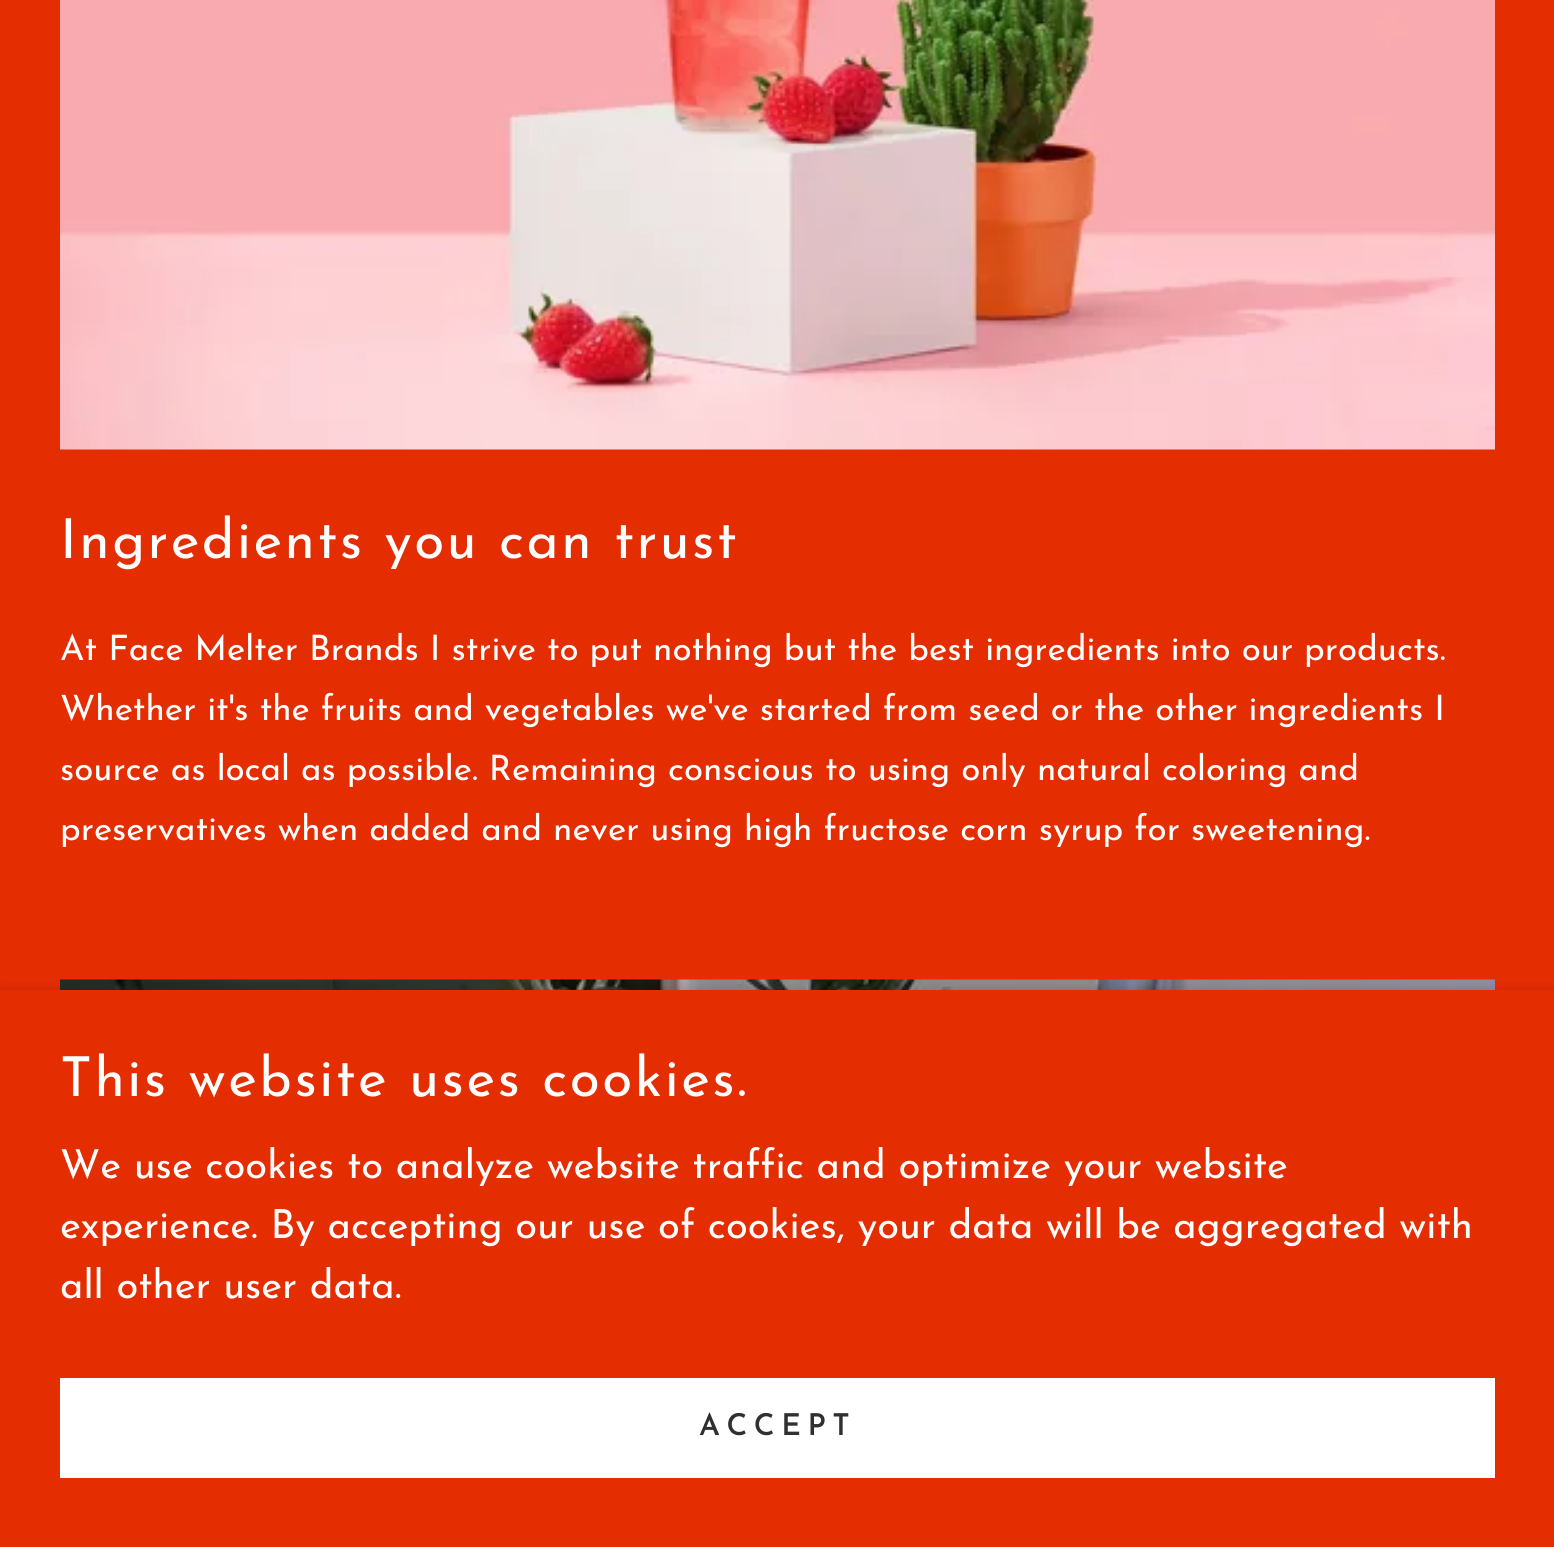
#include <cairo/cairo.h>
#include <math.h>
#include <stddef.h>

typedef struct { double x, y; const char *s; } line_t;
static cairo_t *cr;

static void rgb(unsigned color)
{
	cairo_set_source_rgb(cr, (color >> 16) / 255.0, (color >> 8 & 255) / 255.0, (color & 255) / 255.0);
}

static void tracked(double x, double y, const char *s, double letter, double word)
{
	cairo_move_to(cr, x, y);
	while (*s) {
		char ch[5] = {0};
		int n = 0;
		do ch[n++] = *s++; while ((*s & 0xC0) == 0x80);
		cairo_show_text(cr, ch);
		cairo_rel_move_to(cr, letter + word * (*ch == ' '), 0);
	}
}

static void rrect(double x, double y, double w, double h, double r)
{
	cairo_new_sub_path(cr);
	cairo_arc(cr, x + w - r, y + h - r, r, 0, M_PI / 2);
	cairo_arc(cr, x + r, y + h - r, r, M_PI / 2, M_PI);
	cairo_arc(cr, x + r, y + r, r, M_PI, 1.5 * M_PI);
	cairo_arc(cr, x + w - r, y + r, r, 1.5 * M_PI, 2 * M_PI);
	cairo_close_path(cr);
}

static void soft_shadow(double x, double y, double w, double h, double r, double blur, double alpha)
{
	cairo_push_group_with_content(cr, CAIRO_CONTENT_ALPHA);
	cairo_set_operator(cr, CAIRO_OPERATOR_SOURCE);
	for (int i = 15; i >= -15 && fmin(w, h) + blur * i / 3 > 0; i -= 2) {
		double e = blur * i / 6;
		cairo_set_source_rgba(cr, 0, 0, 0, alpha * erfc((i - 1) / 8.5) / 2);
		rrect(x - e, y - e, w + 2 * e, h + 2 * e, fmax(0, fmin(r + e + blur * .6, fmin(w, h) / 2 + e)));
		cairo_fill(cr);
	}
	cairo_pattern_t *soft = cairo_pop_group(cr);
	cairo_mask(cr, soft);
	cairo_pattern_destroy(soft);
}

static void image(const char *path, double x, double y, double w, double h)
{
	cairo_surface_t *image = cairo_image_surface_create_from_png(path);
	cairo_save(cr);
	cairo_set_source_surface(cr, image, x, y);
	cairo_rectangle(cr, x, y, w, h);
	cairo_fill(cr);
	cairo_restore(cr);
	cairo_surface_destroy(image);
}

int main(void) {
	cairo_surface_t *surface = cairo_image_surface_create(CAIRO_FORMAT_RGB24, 1554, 1547);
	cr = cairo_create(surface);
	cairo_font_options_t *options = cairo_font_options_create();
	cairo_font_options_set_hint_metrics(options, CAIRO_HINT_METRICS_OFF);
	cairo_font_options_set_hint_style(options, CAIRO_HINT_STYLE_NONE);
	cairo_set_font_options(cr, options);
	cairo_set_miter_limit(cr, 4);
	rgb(0xe52d02);
	cairo_paint(cr);
	image("img/1.png", 60, 0, 1435, 450);
	image("img/2.png", 60, 979, 1435, 11);
	rgb(0x000000);
	soft_shadow(0, 995, 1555, 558, 0, 7.5, 0.3);
	rgb(0xe52d02);
	cairo_rectangle(cr, 0, 990, 1554, 557);
	cairo_fill(cr);
	rgb(0xffffff);
	cairo_rectangle(cr, 60, 1378, 1435, 100);
	cairo_fill(cr);
	cairo_select_font_face(cr, "Josefin Sans", CAIRO_FONT_SLANT_NORMAL, CAIRO_FONT_WEIGHT_NORMAL);
	cairo_set_font_size(cr, 55);
	tracked(60, 558, "Ingredients you can trust", 2.5, 0);
	cairo_set_font_size(cr, 35);
	{
		static const line_t items[] = {
			{60, 660, "At Face Melter Brands I strive to put nothing but the best ingredients into our products."},
			{60, 720, "Whether it's the fruits and vegetables we've started from seed or the other ingredients I"},
			{60, 780, "source as local as possible. Remaining conscious to using only natural coloring and"},
			{60, 840, "preservatives when added and never using high fructose corn syrup for sweetening."},
		};
		for (size_t i = 0; i < sizeof items / sizeof *items; i++) {
			cairo_move_to(cr, items[i].x, items[i].y);
			cairo_show_text(cr, items[i].s);
		}
	}
	cairo_set_font_size(cr, 55);
	tracked(60, 1096, "This website uses cookies.", 2.5, 0);
	cairo_set_font_size(cr, 40);
	{
		static const line_t items[] = {
			{60, 1178, "We use cookies to analyze website traffic and optimize your website"},
			{60, 1238, "experience. By accepting our use of cookies, your data will be aggregated with"},
			{60, 1298, "all other user data."},
		};
		for (size_t i = 0; i < sizeof items / sizeof *items; i++) {
			cairo_move_to(cr, items[i].x, items[i].y);
			cairo_show_text(cr, items[i].s);
		}
	}
	cairo_select_font_face(cr, "Josefin Sans SemiBold", CAIRO_FONT_SLANT_NORMAL, CAIRO_FONT_WEIGHT_NORMAL);
	cairo_set_font_size(cr, 30);
	rgb(0x303030);
	tracked(699, 1435, "ACCEPT", 6.5, 0);
	cairo_surface_write_to_png(surface, "page.png");
	cairo_font_options_destroy(options);
	cairo_destroy(cr);
	cairo_surface_destroy(surface);
	return 0;
}
